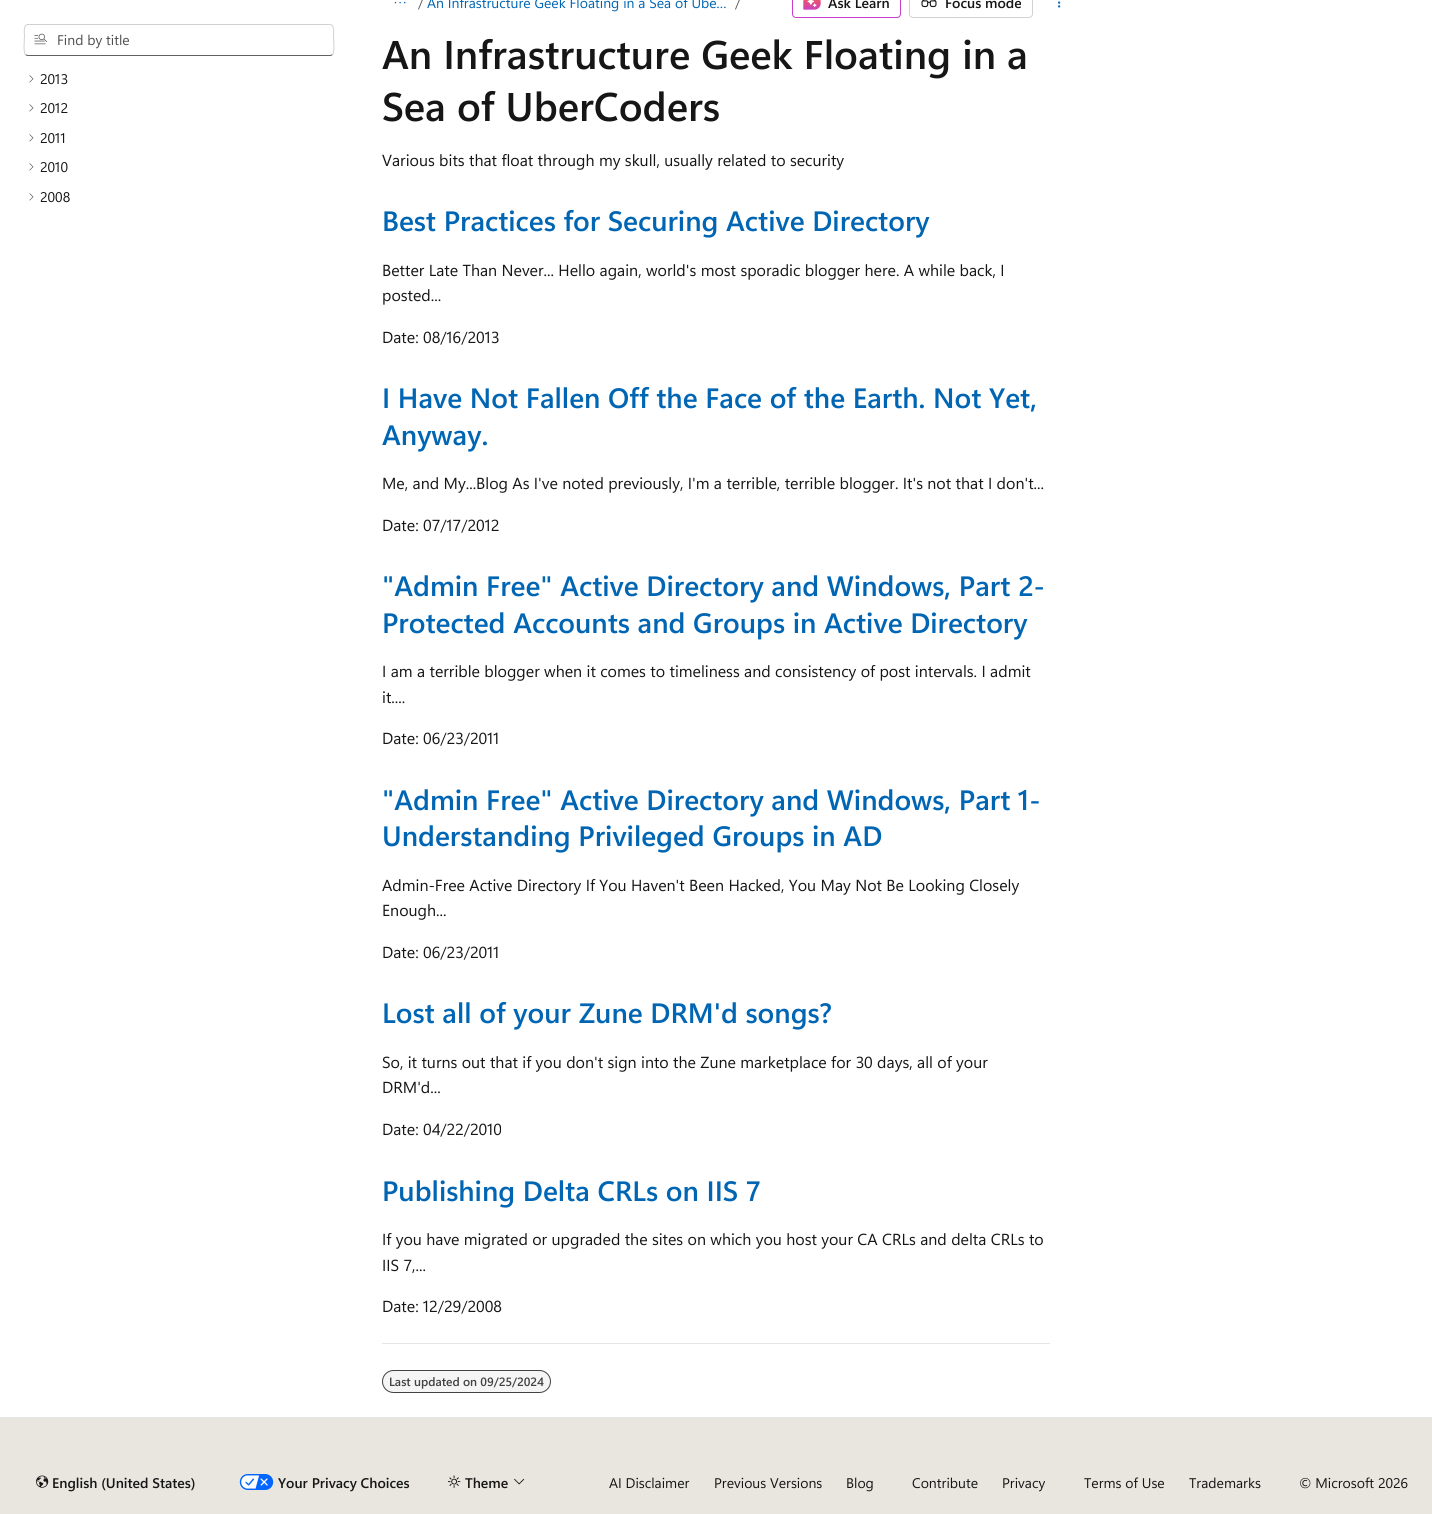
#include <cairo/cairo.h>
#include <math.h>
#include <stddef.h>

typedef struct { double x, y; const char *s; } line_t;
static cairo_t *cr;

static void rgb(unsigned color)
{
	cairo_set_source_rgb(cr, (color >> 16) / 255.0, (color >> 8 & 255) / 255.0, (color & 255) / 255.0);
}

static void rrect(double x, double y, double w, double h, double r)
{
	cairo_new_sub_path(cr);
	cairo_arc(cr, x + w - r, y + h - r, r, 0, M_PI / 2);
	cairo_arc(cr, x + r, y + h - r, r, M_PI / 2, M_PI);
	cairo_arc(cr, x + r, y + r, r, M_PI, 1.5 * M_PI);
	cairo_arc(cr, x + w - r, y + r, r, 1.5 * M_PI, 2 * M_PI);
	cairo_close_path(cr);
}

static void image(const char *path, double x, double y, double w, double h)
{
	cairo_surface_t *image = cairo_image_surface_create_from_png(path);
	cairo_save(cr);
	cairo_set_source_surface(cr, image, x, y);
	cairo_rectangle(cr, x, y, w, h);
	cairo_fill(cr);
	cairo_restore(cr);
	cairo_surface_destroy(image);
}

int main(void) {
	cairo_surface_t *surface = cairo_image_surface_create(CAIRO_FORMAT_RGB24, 1432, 1514);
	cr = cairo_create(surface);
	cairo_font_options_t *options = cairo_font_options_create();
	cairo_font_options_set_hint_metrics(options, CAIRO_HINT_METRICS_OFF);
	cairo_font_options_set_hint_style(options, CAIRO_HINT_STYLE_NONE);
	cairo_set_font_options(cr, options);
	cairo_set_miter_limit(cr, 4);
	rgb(0xffffff);
	cairo_paint(cr);
	cairo_new_path(cr);
	cairo_move_to(cr, 332.5, 54.5);
	cairo_curve_to(cr, 332, 55, 331, 55.5, 330, 55.5);
	cairo_line_to(cr, 28, 55.5);
	cairo_curve_to(cr, 27, 55.5, 26, 55, 25.5, 54.5);
	rgb(0x616161);
	cairo_set_line_width(cr, 1);
	cairo_stroke(cr);
	cairo_new_path(cr);
	cairo_move_to(cr, 25.5, 54.5);
	cairo_curve_to(cr, 23, 52, 24.5, 39.5, 24.5, 36);
	cairo_curve_to(cr, 24.5, 33.5, 23, 25.5, 27.5, 24.5);
	cairo_line_to(cr, 330.5, 24.5);
	cairo_curve_to(cr, 335, 25.5, 333.5, 33.5, 333.5, 36);
	cairo_curve_to(cr, 333.5, 39.5, 335, 52, 332.5, 54.5);
	rgb(0xd1d1d1);
	cairo_stroke(cr);
	image("img/1.png", 34, 33, 13, 12);
	image("img/2.png", 29, 75, 5, 8);
	image("img/2.png", 29, 104, 5, 8);
	image("img/2.png", 29, 134, 5, 8);
	image("img/2.png", 29, 163, 5, 8);
	image("img/2.png", 29, 193, 5, 8);
	image("img/3.png", 394, 1, 12, 3);
	rrect(792.5, -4.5, 108, 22, 3.5);
	rgb(0xc73ecc);
	cairo_stroke(cr);
	image("img/4.png", 803, 0, 18, 10);
	rrect(909.5, -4.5, 123, 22, 3.5);
	rgb(0xd1d1d1);
	cairo_stroke(cr);
	image("img/5.png", 921, 0, 16, 8);
	image("img/6.png", 1058, 1, 3, 7);
	rgb(0xe6e6e6);
	cairo_rectangle(cr, 382, 1343, 668, 1);
	cairo_fill(cr);
	rgb(0xf5f5f5);
	rrect(382.5, 1370.5, 168, 22, 11);
	cairo_fill_preserve(cr);
	rgb(0x424242);
	cairo_stroke(cr);
	rgb(0xe8e6df);
	cairo_rectangle(cr, 0, 1418, 1432, 96);
	cairo_fill(cr);
	rgb(0xe6e6e6);
	cairo_rectangle(cr, 0, 1417, 1432, 1);
	cairo_fill(cr);
	image("img/7.png", 36, 1475, 13, 13);
	image("img/8.png", 239, 1474, 35, 16);
	image("img/9.png", 448, 1475, 13, 13);
	image("img/10.png", 514, 1478, 11, 7);
	cairo_select_font_face(cr, "Segoe UI", CAIRO_FONT_SLANT_NORMAL, CAIRO_FONT_WEIGHT_NORMAL);
	cairo_set_font_size(cr, 14);
	rgb(0x505050);
	cairo_move_to(cr, 57, 45);
	cairo_show_text(cr, "Find by title");
	rgb(0x161616);
	{
		static const line_t items[] = {
			{40, 84, "2013"},
			{40, 113, "2012"},
			{40, 143, "2011"},
			{40, 172, "2010"},
			{40, 202, "2008"},
		};
		for (size_t i = 0; i < sizeof items / sizeof *items; i++) {
			cairo_move_to(cr, items[i].x, items[i].y);
			cairo_show_text(cr, items[i].s);
		}
	}
	rgb(0x505050);
	cairo_move_to(cr, 418, 8);
	cairo_show_text(cr, "/");
	rgb(0x0065b3);
	cairo_move_to(cr, 427, 8);
	cairo_show_text(cr, "An Infrastructure Geek Floating in a Sea of Ube…");
	rgb(0x505050);
	cairo_move_to(cr, 735, 8);
	cairo_show_text(cr, "/");
	cairo_select_font_face(cr, "Segoe UI SemiBold", CAIRO_FONT_SLANT_NORMAL, CAIRO_FONT_WEIGHT_NORMAL);
	rgb(0x161616);
	cairo_move_to(cr, 828, 8);
	cairo_show_text(cr, "Ask Learn");
	cairo_move_to(cr, 945, 8);
	cairo_show_text(cr, "Focus mode");
	cairo_set_font_size(cr, 40);
	cairo_move_to(cr, 382, 69);
	cairo_show_text(cr, "An Infrastructure Geek Floating in a");
	cairo_move_to(cr, 382, 121);
	cairo_show_text(cr, "Sea of UberCoders");
	cairo_select_font_face(cr, "Segoe UI", CAIRO_FONT_SLANT_NORMAL, CAIRO_FONT_WEIGHT_NORMAL);
	cairo_set_font_size(cr, 16);
	cairo_move_to(cr, 382, 166);
	cairo_show_text(cr, "Various bits that float through my skull, usually related to security");
	cairo_select_font_face(cr, "Segoe UI SemiBold", CAIRO_FONT_SLANT_NORMAL, CAIRO_FONT_WEIGHT_NORMAL);
	cairo_set_font_size(cr, 28);
	rgb(0x0065b3);
	cairo_move_to(cr, 382, 231);
	cairo_show_text(cr, "Best Practices for Securing Active Directory");
	cairo_select_font_face(cr, "Segoe UI", CAIRO_FONT_SLANT_NORMAL, CAIRO_FONT_WEIGHT_NORMAL);
	cairo_set_font_size(cr, 16);
	rgb(0x161616);
	{
		static const line_t items[] = {
			{382, 276, "Better Late Than Never... Hello again, world's most sporadic blogger here. A while back, I"},
			{382, 301, "posted..."},
			{382, 343, "Date: 08/16/2013"},
		};
		for (size_t i = 0; i < sizeof items / sizeof *items; i++) {
			cairo_move_to(cr, items[i].x, items[i].y);
			cairo_show_text(cr, items[i].s);
		}
	}
	cairo_select_font_face(cr, "Segoe UI SemiBold", CAIRO_FONT_SLANT_NORMAL, CAIRO_FONT_WEIGHT_NORMAL);
	cairo_set_font_size(cr, 28);
	rgb(0x0065b3);
	cairo_move_to(cr, 382, 408);
	cairo_show_text(cr, "I Have Not Fallen Off the Face of the Earth. Not Yet,");
	cairo_move_to(cr, 382, 445);
	cairo_show_text(cr, "Anyway.");
	cairo_select_font_face(cr, "Segoe UI", CAIRO_FONT_SLANT_NORMAL, CAIRO_FONT_WEIGHT_NORMAL);
	cairo_set_font_size(cr, 16);
	rgb(0x161616);
	cairo_move_to(cr, 382, 489);
	cairo_show_text(cr, "Me, and My...Blog As I've noted previously, I'm a terrible, terrible blogger. It's not that I don't...");
	cairo_move_to(cr, 382, 531);
	cairo_show_text(cr, "Date: 07/17/2012");
	cairo_select_font_face(cr, "Segoe UI SemiBold", CAIRO_FONT_SLANT_NORMAL, CAIRO_FONT_WEIGHT_NORMAL);
	cairo_set_font_size(cr, 28);
	rgb(0x0065b3);
	cairo_move_to(cr, 382, 596);
	cairo_show_text(cr, "\"Admin Free\" Active Directory and Windows, Part 2-");
	cairo_move_to(cr, 382, 633);
	cairo_show_text(cr, "Protected Accounts and Groups in Active Directory");
	cairo_select_font_face(cr, "Segoe UI", CAIRO_FONT_SLANT_NORMAL, CAIRO_FONT_WEIGHT_NORMAL);
	cairo_set_font_size(cr, 16);
	rgb(0x161616);
	{
		static const line_t items[] = {
			{382, 677, "I am a terrible blogger when it comes to timeliness and consistency of post intervals. I admit"},
			{382, 703, "it...."},
			{382, 744, "Date: 06/23/2011"},
		};
		for (size_t i = 0; i < sizeof items / sizeof *items; i++) {
			cairo_move_to(cr, items[i].x, items[i].y);
			cairo_show_text(cr, items[i].s);
		}
	}
	cairo_select_font_face(cr, "Segoe UI SemiBold", CAIRO_FONT_SLANT_NORMAL, CAIRO_FONT_WEIGHT_NORMAL);
	cairo_set_font_size(cr, 28);
	rgb(0x0065b3);
	cairo_move_to(cr, 382, 810);
	cairo_show_text(cr, "\"Admin Free\" Active Directory and Windows, Part 1-");
	cairo_move_to(cr, 382, 846);
	cairo_show_text(cr, "Understanding Privileged Groups in AD");
	cairo_select_font_face(cr, "Segoe UI", CAIRO_FONT_SLANT_NORMAL, CAIRO_FONT_WEIGHT_NORMAL);
	cairo_set_font_size(cr, 16);
	rgb(0x161616);
	{
		static const line_t items[] = {
			{382, 891, "Admin-Free Active Directory If You Haven't Been Hacked, You May Not Be Looking Closely"},
			{382, 916, "Enough..."},
			{382, 958, "Date: 06/23/2011"},
		};
		for (size_t i = 0; i < sizeof items / sizeof *items; i++) {
			cairo_move_to(cr, items[i].x, items[i].y);
			cairo_show_text(cr, items[i].s);
		}
	}
	cairo_select_font_face(cr, "Segoe UI SemiBold", CAIRO_FONT_SLANT_NORMAL, CAIRO_FONT_WEIGHT_NORMAL);
	cairo_set_font_size(cr, 28);
	rgb(0x0065b3);
	cairo_move_to(cr, 382, 1023);
	cairo_show_text(cr, "Lost all of your Zune DRM'd songs?");
	cairo_select_font_face(cr, "Segoe UI", CAIRO_FONT_SLANT_NORMAL, CAIRO_FONT_WEIGHT_NORMAL);
	cairo_set_font_size(cr, 16);
	rgb(0x161616);
	{
		static const line_t items[] = {
			{382, 1068, "So, it turns out that if you don't sign into the Zune marketplace for 30 days, all of your"},
			{382, 1093, "DRM'd..."},
			{382, 1135, "Date: 04/22/2010"},
		};
		for (size_t i = 0; i < sizeof items / sizeof *items; i++) {
			cairo_move_to(cr, items[i].x, items[i].y);
			cairo_show_text(cr, items[i].s);
		}
	}
	cairo_select_font_face(cr, "Segoe UI SemiBold", CAIRO_FONT_SLANT_NORMAL, CAIRO_FONT_WEIGHT_NORMAL);
	cairo_set_font_size(cr, 28);
	rgb(0x0065b3);
	cairo_move_to(cr, 382, 1201);
	cairo_show_text(cr, "Publishing Delta CRLs on IIS 7");
	cairo_select_font_face(cr, "Segoe UI", CAIRO_FONT_SLANT_NORMAL, CAIRO_FONT_WEIGHT_NORMAL);
	cairo_set_font_size(cr, 16);
	rgb(0x161616);
	{
		static const line_t items[] = {
			{382, 1245, "If you have migrated or upgraded the sites on which you host your CA CRLs and delta CRLs to"},
			{382, 1271, "IIS 7,..."},
			{382, 1312, "Date: 12/29/2008"},
		};
		for (size_t i = 0; i < sizeof items / sizeof *items; i++) {
			cairo_move_to(cr, items[i].x, items[i].y);
			cairo_show_text(cr, items[i].s);
		}
	}
	cairo_select_font_face(cr, "Segoe UI SemiBold", CAIRO_FONT_SLANT_NORMAL, CAIRO_FONT_WEIGHT_NORMAL);
	cairo_set_font_size(cr, 12);
	rgb(0x424242);
	cairo_move_to(cr, 389, 1386);
	cairo_show_text(cr, "Last updated on 09/25/2024");
	cairo_set_font_size(cr, 14);
	rgb(0x161616);
	{
		static const line_t items[] = {
			{52, 1488, "English (United States)"},
			{278, 1488, "Your Privacy Choices"},
			{465, 1488, "Theme"},
		};
		for (size_t i = 0; i < sizeof items / sizeof *items; i++) {
			cairo_move_to(cr, items[i].x, items[i].y);
			cairo_show_text(cr, items[i].s);
		}
	}
	cairo_select_font_face(cr, "Segoe UI", CAIRO_FONT_SLANT_NORMAL, CAIRO_FONT_WEIGHT_NORMAL);
	{
		static const line_t items[] = {
			{609, 1488, "AI Disclaimer"},
			{714, 1488, "Previous Versions"},
			{846, 1488, "Blog"},
			{912, 1488, "Contribute"},
			{1002, 1488, "Privacy"},
			{1084, 1488, "Terms of Use"},
			{1189, 1488, "Trademarks"},
			{1299, 1488, "© Microsoft 2026"},
		};
		for (size_t i = 0; i < sizeof items / sizeof *items; i++) {
			cairo_move_to(cr, items[i].x, items[i].y);
			cairo_show_text(cr, items[i].s);
		}
	}
	cairo_surface_write_to_png(surface, "page.png");
	cairo_font_options_destroy(options);
	cairo_destroy(cr);
	cairo_surface_destroy(surface);
	return 0;
}
